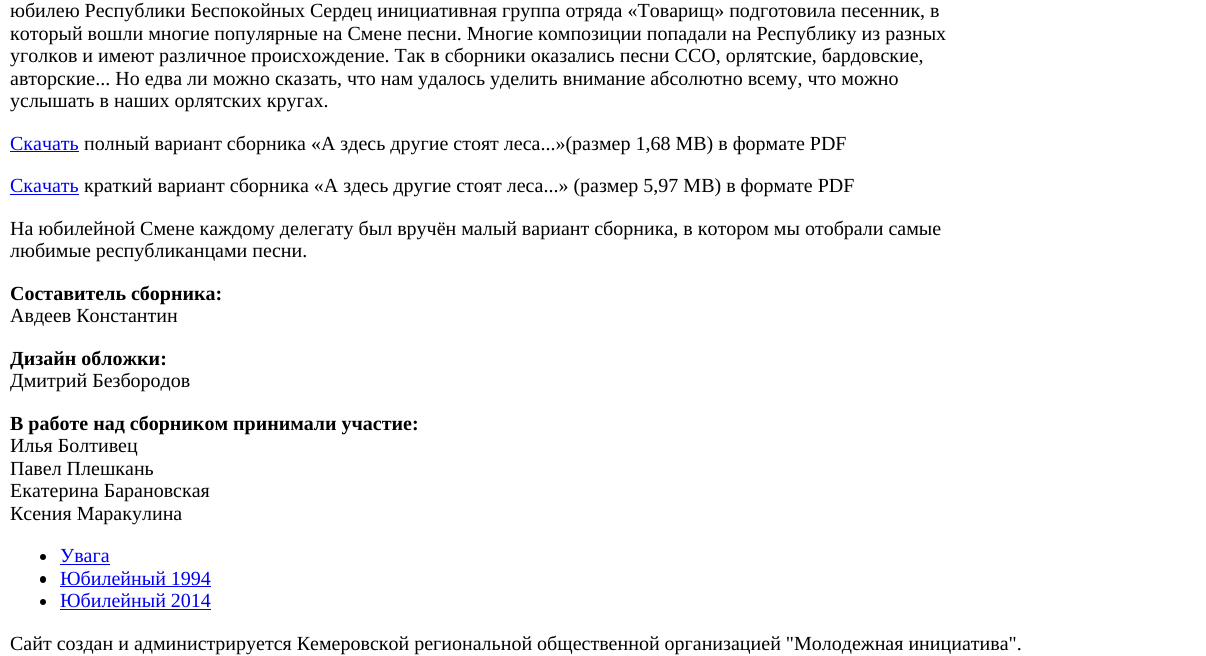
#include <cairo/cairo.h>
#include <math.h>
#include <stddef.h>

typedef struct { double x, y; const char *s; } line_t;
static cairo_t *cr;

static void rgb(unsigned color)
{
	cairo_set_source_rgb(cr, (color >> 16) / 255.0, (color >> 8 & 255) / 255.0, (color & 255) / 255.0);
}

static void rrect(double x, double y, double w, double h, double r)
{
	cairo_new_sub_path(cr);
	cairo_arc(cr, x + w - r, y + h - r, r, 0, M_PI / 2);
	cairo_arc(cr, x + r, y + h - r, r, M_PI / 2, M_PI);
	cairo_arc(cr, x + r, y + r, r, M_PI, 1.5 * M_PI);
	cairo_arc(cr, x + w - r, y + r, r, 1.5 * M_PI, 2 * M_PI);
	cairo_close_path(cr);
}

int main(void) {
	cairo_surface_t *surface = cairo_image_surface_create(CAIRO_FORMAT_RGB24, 1206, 656);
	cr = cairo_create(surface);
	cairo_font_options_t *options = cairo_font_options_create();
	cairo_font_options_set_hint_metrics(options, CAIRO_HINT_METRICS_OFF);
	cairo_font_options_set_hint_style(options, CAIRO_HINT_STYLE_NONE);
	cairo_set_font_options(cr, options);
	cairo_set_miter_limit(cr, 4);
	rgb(0xffffff);
	cairo_paint(cr);
	rgb(0x0000ee);
	cairo_rectangle(cr, 10, 151, 69, 1);
	cairo_fill(cr);
	cairo_rectangle(cr, 10, 194, 69, 1);
	cairo_fill(cr);
	rgb(0x000000);
	cairo_arc(cr, 43, 557, 3, 0, 2 * M_PI);
	cairo_fill(cr);
	rgb(0x0000ee);
	cairo_rectangle(cr, 60, 564, 50, 1);
	cairo_fill(cr);
	rgb(0x000000);
	rrect(40, 576, 6, 7, 3);
	cairo_fill(cr);
	rgb(0x0000ee);
	cairo_rectangle(cr, 60, 586, 151, 1);
	cairo_fill(cr);
	rgb(0x000000);
	cairo_arc(cr, 43, 602, 3, 0, 2 * M_PI);
	cairo_fill(cr);
	rgb(0x0000ee);
	cairo_rectangle(cr, 60, 609, 151, 1);
	cairo_fill(cr);
	cairo_select_font_face(cr, "Liberation Serif", CAIRO_FONT_SLANT_NORMAL, CAIRO_FONT_WEIGHT_NORMAL);
	cairo_set_font_size(cr, 20);
	rgb(0x000000);
	{
		static const line_t items[] = {
			{10, 17, "юбилею Республики Беспокойных Сердец инициативная группа отряда «Товарищ» подготовила песенник, в"},
			{10, 40, "который вошли многие популярные на Смене песни. Многие композиции попадали на Республику из разных"},
			{10, 62, "уголков и имеют различное происхождение. Так в сборники оказались песни ССО, орлятские, бардовские,"},
			{10, 85, "авторские... Но едва ли можно сказать, что нам удалось уделить внимание абсолютно всему, что можно"},
			{10, 107, "услышать в наших орлятских кругах."},
		};
		for (size_t i = 0; i < sizeof items / sizeof *items; i++) {
			cairo_move_to(cr, items[i].x, items[i].y);
			cairo_show_text(cr, items[i].s);
		}
	}
	rgb(0x0000ee);
	cairo_move_to(cr, 10, 150);
	cairo_show_text(cr, "Скачать");
	rgb(0x000000);
	cairo_move_to(cr, 84, 150);
	cairo_show_text(cr, "полный вариант сборника «А здесь другие стоят леса...»(размер 1,68 MB) в формате PDF");
	rgb(0x0000ee);
	cairo_move_to(cr, 10, 192);
	cairo_show_text(cr, "Скачать");
	rgb(0x000000);
	{
		static const line_t items[] = {
			{84, 192, "краткий вариант сборника «А здесь другие стоят леса...» (размер 5,97 MB) в формате PDF"},
			{10, 235, "На юбилейной Смене каждому делегату был вручён малый вариант сборника, в котором мы отобрали самые"},
			{10, 257, "любимые республиканцами песни."},
		};
		for (size_t i = 0; i < sizeof items / sizeof *items; i++) {
			cairo_move_to(cr, items[i].x, items[i].y);
			cairo_show_text(cr, items[i].s);
		}
	}
	cairo_select_font_face(cr, "Liberation Serif", CAIRO_FONT_SLANT_NORMAL, CAIRO_FONT_WEIGHT_BOLD);
	cairo_move_to(cr, 10, 300);
	cairo_show_text(cr, "Составитель сборника:");
	cairo_select_font_face(cr, "Liberation Serif", CAIRO_FONT_SLANT_NORMAL, CAIRO_FONT_WEIGHT_NORMAL);
	cairo_move_to(cr, 10, 322);
	cairo_show_text(cr, "Авдеев Константин");
	cairo_select_font_face(cr, "Liberation Serif", CAIRO_FONT_SLANT_NORMAL, CAIRO_FONT_WEIGHT_BOLD);
	cairo_move_to(cr, 10, 365);
	cairo_show_text(cr, "Дизайн обложки:");
	cairo_select_font_face(cr, "Liberation Serif", CAIRO_FONT_SLANT_NORMAL, CAIRO_FONT_WEIGHT_NORMAL);
	cairo_move_to(cr, 10, 387);
	cairo_show_text(cr, "Дмитрий Безбородов");
	cairo_select_font_face(cr, "Liberation Serif", CAIRO_FONT_SLANT_NORMAL, CAIRO_FONT_WEIGHT_BOLD);
	cairo_move_to(cr, 10, 430);
	cairo_show_text(cr, "В работе над сборником принимали участие:");
	cairo_select_font_face(cr, "Liberation Serif", CAIRO_FONT_SLANT_NORMAL, CAIRO_FONT_WEIGHT_NORMAL);
	{
		static const line_t items[] = {
			{10, 452, "Илья Болтивец"},
			{10, 475, "Павел Плешкань"},
			{10, 497, "Екатерина Барановская"},
			{10, 520, "Ксения Маракулина"},
		};
		for (size_t i = 0; i < sizeof items / sizeof *items; i++) {
			cairo_move_to(cr, items[i].x, items[i].y);
			cairo_show_text(cr, items[i].s);
		}
	}
	rgb(0x0000ee);
	{
		static const line_t items[] = {
			{60, 562, "Увага"},
			{60, 585, "Юбилейный 1994"},
			{60, 607, "Юбилейный 2014"},
		};
		for (size_t i = 0; i < sizeof items / sizeof *items; i++) {
			cairo_move_to(cr, items[i].x, items[i].y);
			cairo_show_text(cr, items[i].s);
		}
	}
	rgb(0x000000);
	cairo_move_to(cr, 10, 650);
	cairo_show_text(cr, "Сайт создан и администрируется Кемеровской региональной общественной организацией \"Молодежная инициатива\".");
	cairo_surface_write_to_png(surface, "page.png");
	cairo_font_options_destroy(options);
	cairo_destroy(cr);
	cairo_surface_destroy(surface);
	return 0;
}
